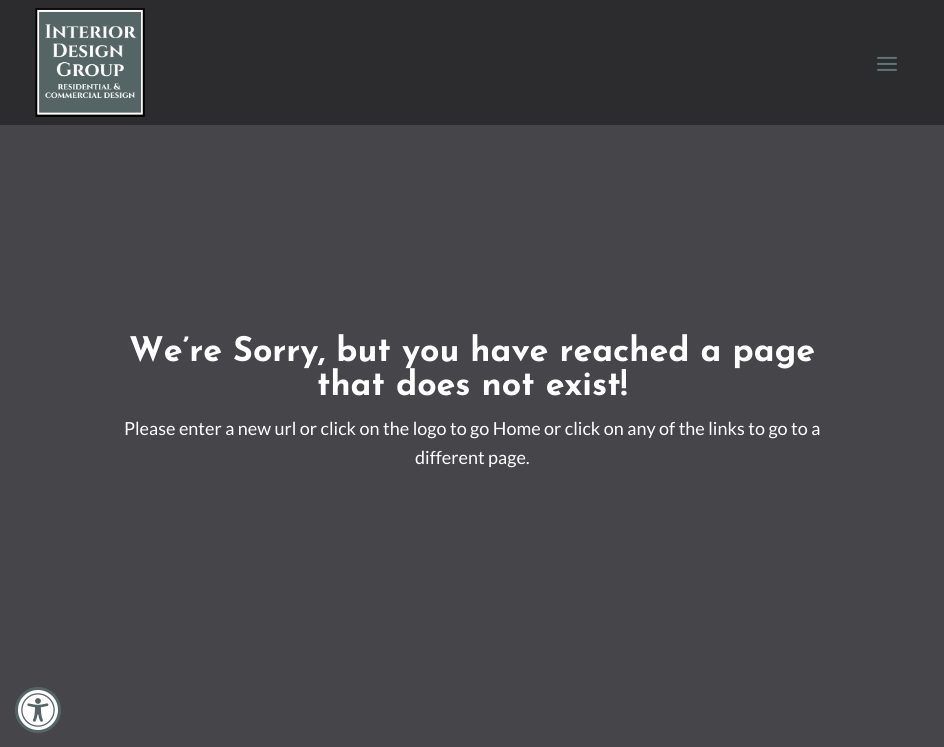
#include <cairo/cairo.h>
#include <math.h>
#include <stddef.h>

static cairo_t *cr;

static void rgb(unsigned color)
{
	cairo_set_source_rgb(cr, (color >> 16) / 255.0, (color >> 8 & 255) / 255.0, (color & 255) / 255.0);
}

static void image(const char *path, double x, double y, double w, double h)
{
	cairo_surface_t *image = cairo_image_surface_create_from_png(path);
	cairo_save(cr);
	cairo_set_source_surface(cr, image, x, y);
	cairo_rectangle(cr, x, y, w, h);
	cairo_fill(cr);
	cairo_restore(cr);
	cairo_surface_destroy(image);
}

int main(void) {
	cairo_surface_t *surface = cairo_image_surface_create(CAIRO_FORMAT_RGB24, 944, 747);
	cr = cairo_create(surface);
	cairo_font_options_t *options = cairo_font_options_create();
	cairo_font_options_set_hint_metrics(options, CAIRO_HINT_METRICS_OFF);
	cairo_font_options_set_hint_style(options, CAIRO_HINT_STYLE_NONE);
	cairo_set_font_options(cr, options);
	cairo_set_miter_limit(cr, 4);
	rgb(0x45454a);
	cairo_paint(cr);
	rgb(0x2c2c2e);
	cairo_rectangle(cr, 0, 0, 944, 125);
	cairo_fill(cr);
	image("img/1.png", 35, 8, 110, 109);
	image("img/2.png", 877, 56, 20, 15);
	rgb(0x556565);
	cairo_arc(cr, 38, 710, 23, 0, 2 * M_PI);
	cairo_fill(cr);
	image("img/3.png", 18, 690, 40, 40);
	cairo_select_font_face(cr, "Josefin Sans", CAIRO_FONT_SLANT_NORMAL, CAIRO_FONT_WEIGHT_BOLD);
	cairo_set_font_size(cr, 34);
	rgb(0xffffff);
	cairo_move_to(cr, 129, 361);
	cairo_show_text(cr, "We’re Sorry, but you have reached a page");
	cairo_move_to(cr, 317, 395);
	cairo_show_text(cr, "that does not exist!");
	cairo_select_font_face(cr, "Lato", CAIRO_FONT_SLANT_NORMAL, CAIRO_FONT_WEIGHT_NORMAL);
	cairo_set_font_size(cr, 18);
	cairo_move_to(cr, 124, 435);
	cairo_show_text(cr, "Please enter a new url or click on the logo to go Home or click on any of the links to go to a");
	cairo_move_to(cr, 415, 464);
	cairo_show_text(cr, "different page.");
	cairo_surface_write_to_png(surface, "page.png");
	cairo_font_options_destroy(options);
	cairo_destroy(cr);
	cairo_surface_destroy(surface);
	return 0;
}
